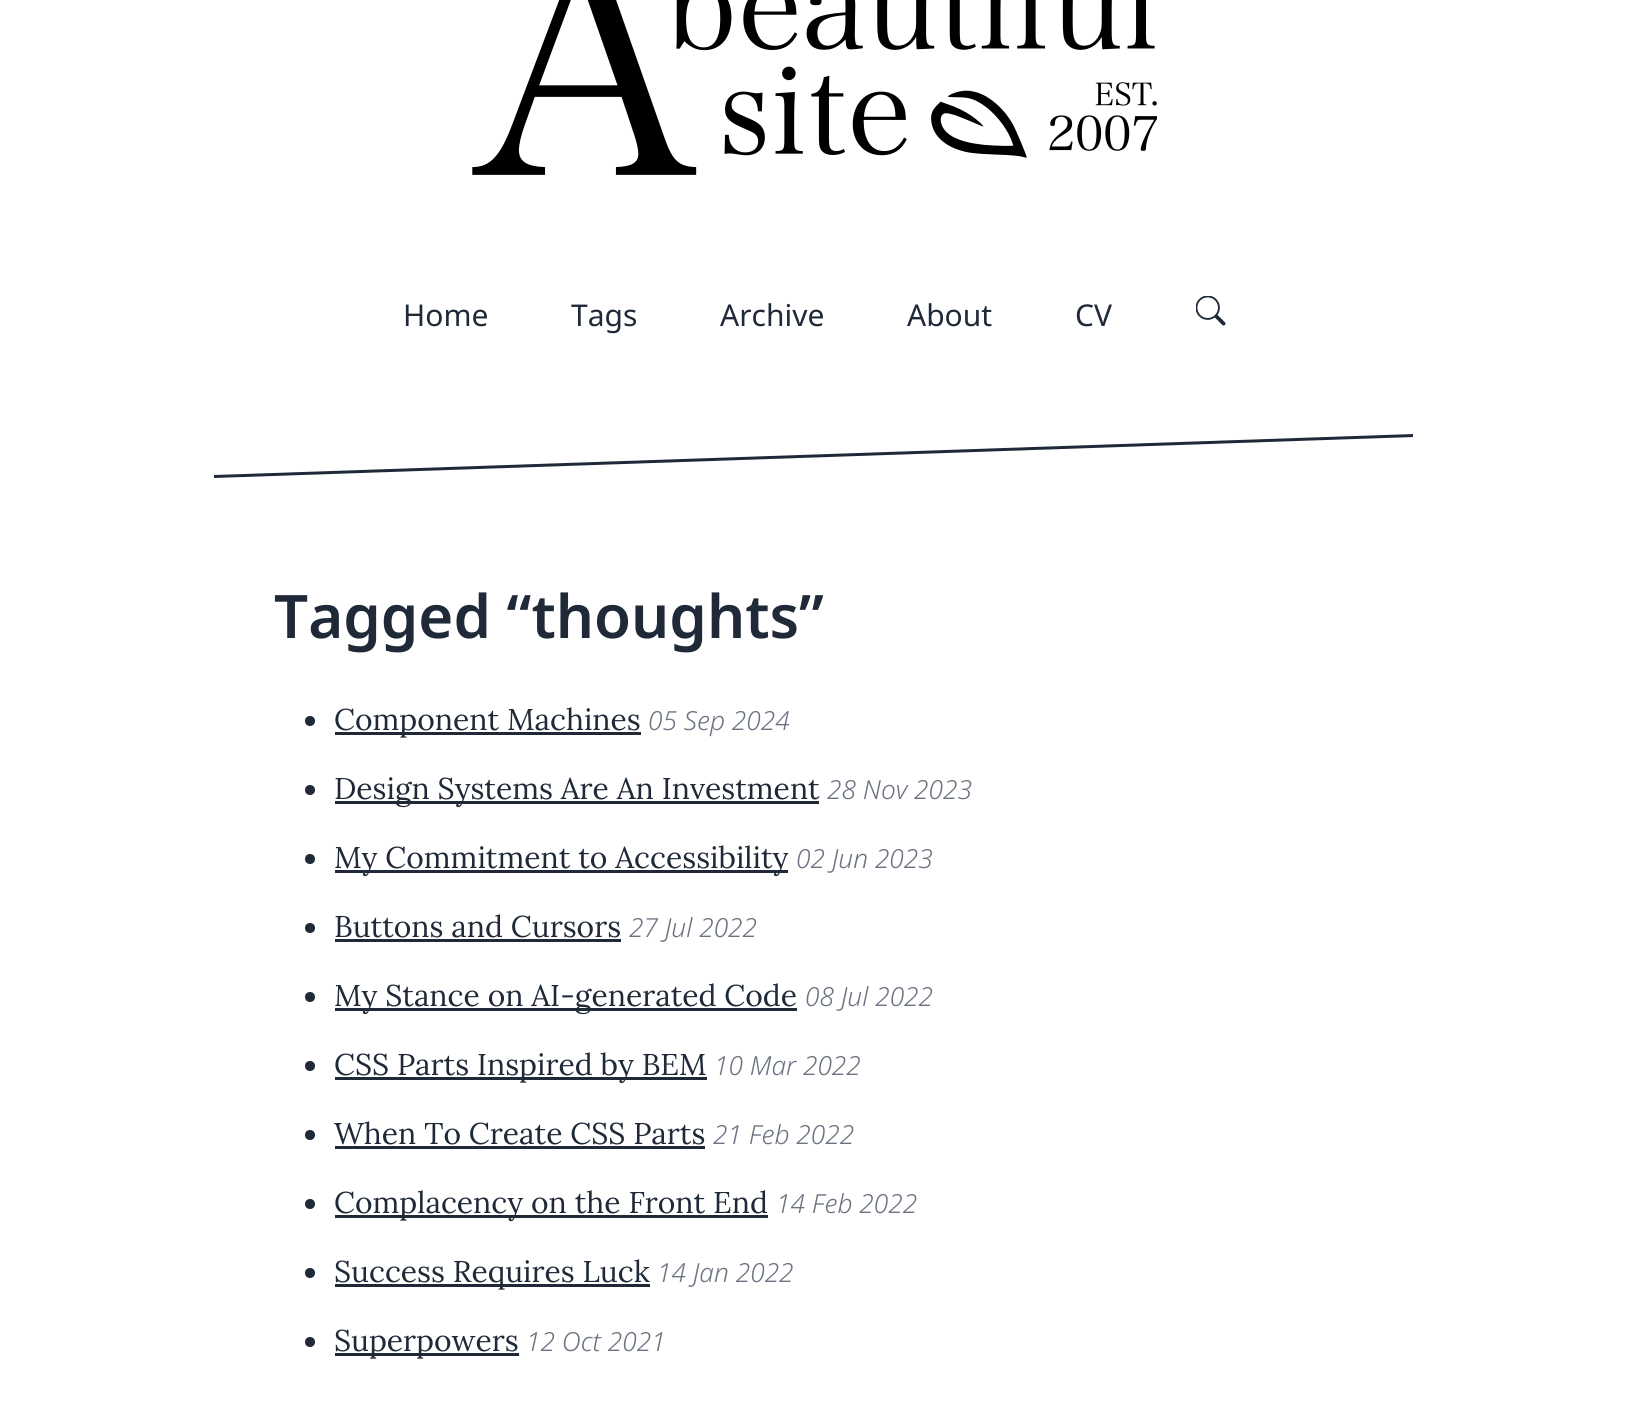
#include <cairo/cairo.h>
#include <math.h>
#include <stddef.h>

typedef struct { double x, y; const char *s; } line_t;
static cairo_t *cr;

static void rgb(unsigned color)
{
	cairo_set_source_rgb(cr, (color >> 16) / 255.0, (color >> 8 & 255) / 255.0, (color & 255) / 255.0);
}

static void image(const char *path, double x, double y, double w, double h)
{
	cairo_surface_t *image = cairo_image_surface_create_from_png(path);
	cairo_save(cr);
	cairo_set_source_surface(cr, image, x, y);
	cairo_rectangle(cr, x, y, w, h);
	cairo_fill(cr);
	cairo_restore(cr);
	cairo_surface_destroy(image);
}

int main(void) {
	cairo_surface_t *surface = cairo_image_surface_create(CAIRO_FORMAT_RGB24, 1627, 1428);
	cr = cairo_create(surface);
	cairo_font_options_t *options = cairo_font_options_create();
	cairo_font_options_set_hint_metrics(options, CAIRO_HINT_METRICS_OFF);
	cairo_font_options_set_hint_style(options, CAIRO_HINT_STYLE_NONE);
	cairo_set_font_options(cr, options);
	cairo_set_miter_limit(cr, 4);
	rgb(0xffffff);
	cairo_paint(cr);
	image("img/1.png", 472, 0, 685, 175);
	image("img/2.png", 1196, 296, 30, 30);
	rgb(0x1f2938);
	cairo_new_path(cr);
	cairo_move_to(cr, 214, 475);
	cairo_line_to(cr, 1413, 434);
	cairo_line_to(cr, 1413, 437);
	cairo_line_to(cr, 214, 478);
	cairo_close_path(cr);
	cairo_fill(cr);
	cairo_arc(cr, 310, 721, 5, 0, 2 * M_PI);
	cairo_fill(cr);
	cairo_rectangle(cr, 335, 732, 306, 3);
	cairo_fill(cr);
	cairo_arc(cr, 310, 790, 5, 0, 2 * M_PI);
	cairo_fill(cr);
	cairo_rectangle(cr, 335, 801, 484, 3);
	cairo_fill(cr);
	cairo_arc(cr, 310, 859, 5, 0, 2 * M_PI);
	cairo_fill(cr);
	cairo_rectangle(cr, 335, 870, 453, 3);
	cairo_fill(cr);
	cairo_arc(cr, 310, 928, 5, 0, 2 * M_PI);
	cairo_fill(cr);
	cairo_rectangle(cr, 335, 939, 286, 3);
	cairo_fill(cr);
	cairo_arc(cr, 310, 997, 5, 0, 2 * M_PI);
	cairo_fill(cr);
	cairo_rectangle(cr, 335, 1008, 462, 3);
	cairo_fill(cr);
	cairo_arc(cr, 310, 1066, 5, 0, 2 * M_PI);
	cairo_fill(cr);
	cairo_rectangle(cr, 335, 1077, 372, 3);
	cairo_fill(cr);
	cairo_arc(cr, 310, 1135, 5, 0, 2 * M_PI);
	cairo_fill(cr);
	cairo_rectangle(cr, 335, 1146, 370, 3);
	cairo_fill(cr);
	cairo_arc(cr, 310, 1204, 5, 0, 2 * M_PI);
	cairo_fill(cr);
	cairo_rectangle(cr, 335, 1215, 433, 3);
	cairo_fill(cr);
	cairo_arc(cr, 310, 1273, 5, 0, 2 * M_PI);
	cairo_fill(cr);
	cairo_rectangle(cr, 335, 1284, 315, 3);
	cairo_fill(cr);
	cairo_arc(cr, 310, 1342, 5, 0, 2 * M_PI);
	cairo_fill(cr);
	cairo_rectangle(cr, 335, 1353, 184, 3);
	cairo_fill(cr);
	cairo_select_font_face(cr, "Noto Sans", CAIRO_FONT_SLANT_NORMAL, CAIRO_FONT_WEIGHT_NORMAL);
	cairo_set_font_size(cr, 30);
	{
		static const line_t items[] = {
			{403, 326, "Home"},
			{571, 326, "Tags"},
			{720, 326, "Archive"},
			{907, 326, "About"},
			{1075, 326, "CV"},
		};
		for (size_t i = 0; i < sizeof items / sizeof *items; i++) {
			cairo_move_to(cr, items[i].x, items[i].y);
			cairo_show_text(cr, items[i].s);
		}
	}
	cairo_select_font_face(cr, "Noto Sans SemiBold", CAIRO_FONT_SLANT_NORMAL, CAIRO_FONT_WEIGHT_NORMAL);
	cairo_set_font_size(cr, 60);
	cairo_move_to(cr, 274, 638);
	cairo_show_text(cr, "Tagged “thoughts”");
	cairo_select_font_face(cr, "Lora", CAIRO_FONT_SLANT_NORMAL, CAIRO_FONT_WEIGHT_NORMAL);
	cairo_set_font_size(cr, 30);
	cairo_move_to(cr, 334, 730);
	cairo_show_text(cr, "Component Machines");
	cairo_select_font_face(cr, "Noto Sans Light", CAIRO_FONT_SLANT_ITALIC, CAIRO_FONT_WEIGHT_NORMAL);
	cairo_set_font_size(cr, 26.25);
	rgb(0x6b7280);
	cairo_move_to(cr, 648, 730);
	cairo_show_text(cr, "05 Sep 2024");
	cairo_select_font_face(cr, "Lora", CAIRO_FONT_SLANT_NORMAL, CAIRO_FONT_WEIGHT_NORMAL);
	cairo_set_font_size(cr, 30);
	rgb(0x1f2938);
	cairo_move_to(cr, 334, 799);
	cairo_show_text(cr, "Design Systems Are An Investment");
	cairo_select_font_face(cr, "Noto Sans Light", CAIRO_FONT_SLANT_ITALIC, CAIRO_FONT_WEIGHT_NORMAL);
	cairo_set_font_size(cr, 26.25);
	rgb(0x6b7280);
	cairo_move_to(cr, 827, 799);
	cairo_show_text(cr, "28 Nov 2023");
	cairo_select_font_face(cr, "Lora", CAIRO_FONT_SLANT_NORMAL, CAIRO_FONT_WEIGHT_NORMAL);
	cairo_set_font_size(cr, 30);
	rgb(0x1f2938);
	cairo_move_to(cr, 334, 868);
	cairo_show_text(cr, "My Commitment to Accessibility");
	cairo_select_font_face(cr, "Noto Sans Light", CAIRO_FONT_SLANT_ITALIC, CAIRO_FONT_WEIGHT_NORMAL);
	cairo_set_font_size(cr, 26.25);
	rgb(0x6b7280);
	cairo_move_to(cr, 796, 868);
	cairo_show_text(cr, "02 Jun 2023");
	cairo_select_font_face(cr, "Lora", CAIRO_FONT_SLANT_NORMAL, CAIRO_FONT_WEIGHT_NORMAL);
	cairo_set_font_size(cr, 30);
	rgb(0x1f2938);
	cairo_move_to(cr, 334, 937);
	cairo_show_text(cr, "Buttons and Cursors");
	cairo_select_font_face(cr, "Noto Sans Light", CAIRO_FONT_SLANT_ITALIC, CAIRO_FONT_WEIGHT_NORMAL);
	cairo_set_font_size(cr, 26.25);
	rgb(0x6b7280);
	cairo_move_to(cr, 629, 937);
	cairo_show_text(cr, "27 Jul 2022");
	cairo_select_font_face(cr, "Lora", CAIRO_FONT_SLANT_NORMAL, CAIRO_FONT_WEIGHT_NORMAL);
	cairo_set_font_size(cr, 30);
	rgb(0x1f2938);
	cairo_move_to(cr, 334, 1006);
	cairo_show_text(cr, "My Stance on AI-generated Code");
	cairo_select_font_face(cr, "Noto Sans Light", CAIRO_FONT_SLANT_ITALIC, CAIRO_FONT_WEIGHT_NORMAL);
	cairo_set_font_size(cr, 26.25);
	rgb(0x6b7280);
	cairo_move_to(cr, 805, 1006);
	cairo_show_text(cr, "08 Jul 2022");
	cairo_select_font_face(cr, "Lora", CAIRO_FONT_SLANT_NORMAL, CAIRO_FONT_WEIGHT_NORMAL);
	cairo_set_font_size(cr, 30);
	rgb(0x1f2938);
	cairo_move_to(cr, 334, 1075);
	cairo_show_text(cr, "CSS Parts Inspired by BEM");
	cairo_select_font_face(cr, "Noto Sans Light", CAIRO_FONT_SLANT_ITALIC, CAIRO_FONT_WEIGHT_NORMAL);
	cairo_set_font_size(cr, 26.25);
	rgb(0x6b7280);
	cairo_move_to(cr, 714, 1075);
	cairo_show_text(cr, "10 Mar 2022");
	cairo_select_font_face(cr, "Lora", CAIRO_FONT_SLANT_NORMAL, CAIRO_FONT_WEIGHT_NORMAL);
	cairo_set_font_size(cr, 30);
	rgb(0x1f2938);
	cairo_move_to(cr, 334, 1144);
	cairo_show_text(cr, "When To Create CSS Parts");
	cairo_select_font_face(cr, "Noto Sans Light", CAIRO_FONT_SLANT_ITALIC, CAIRO_FONT_WEIGHT_NORMAL);
	cairo_set_font_size(cr, 26.25);
	rgb(0x6b7280);
	cairo_move_to(cr, 713, 1144);
	cairo_show_text(cr, "21 Feb 2022");
	cairo_select_font_face(cr, "Lora", CAIRO_FONT_SLANT_NORMAL, CAIRO_FONT_WEIGHT_NORMAL);
	cairo_set_font_size(cr, 30);
	rgb(0x1f2938);
	cairo_move_to(cr, 334, 1213);
	cairo_show_text(cr, "Complacency on the Front End");
	cairo_select_font_face(cr, "Noto Sans Light", CAIRO_FONT_SLANT_ITALIC, CAIRO_FONT_WEIGHT_NORMAL);
	cairo_set_font_size(cr, 26.25);
	rgb(0x6b7280);
	cairo_move_to(cr, 776, 1213);
	cairo_show_text(cr, "14 Feb 2022");
	cairo_select_font_face(cr, "Lora", CAIRO_FONT_SLANT_NORMAL, CAIRO_FONT_WEIGHT_NORMAL);
	cairo_set_font_size(cr, 30);
	rgb(0x1f2938);
	cairo_move_to(cr, 334, 1282);
	cairo_show_text(cr, "Success Requires Luck");
	cairo_select_font_face(cr, "Noto Sans Light", CAIRO_FONT_SLANT_ITALIC, CAIRO_FONT_WEIGHT_NORMAL);
	cairo_set_font_size(cr, 26.25);
	rgb(0x6b7280);
	cairo_move_to(cr, 657, 1282);
	cairo_show_text(cr, "14 Jan 2022");
	cairo_select_font_face(cr, "Lora", CAIRO_FONT_SLANT_NORMAL, CAIRO_FONT_WEIGHT_NORMAL);
	cairo_set_font_size(cr, 30);
	rgb(0x1f2938);
	cairo_move_to(cr, 334, 1351);
	cairo_show_text(cr, "Superpowers");
	cairo_select_font_face(cr, "Noto Sans Light", CAIRO_FONT_SLANT_ITALIC, CAIRO_FONT_WEIGHT_NORMAL);
	cairo_set_font_size(cr, 26.25);
	rgb(0x6b7280);
	cairo_move_to(cr, 526, 1351);
	cairo_show_text(cr, "12 Oct 2021");
	cairo_surface_write_to_png(surface, "page.png");
	cairo_font_options_destroy(options);
	cairo_destroy(cr);
	cairo_surface_destroy(surface);
	return 0;
}
